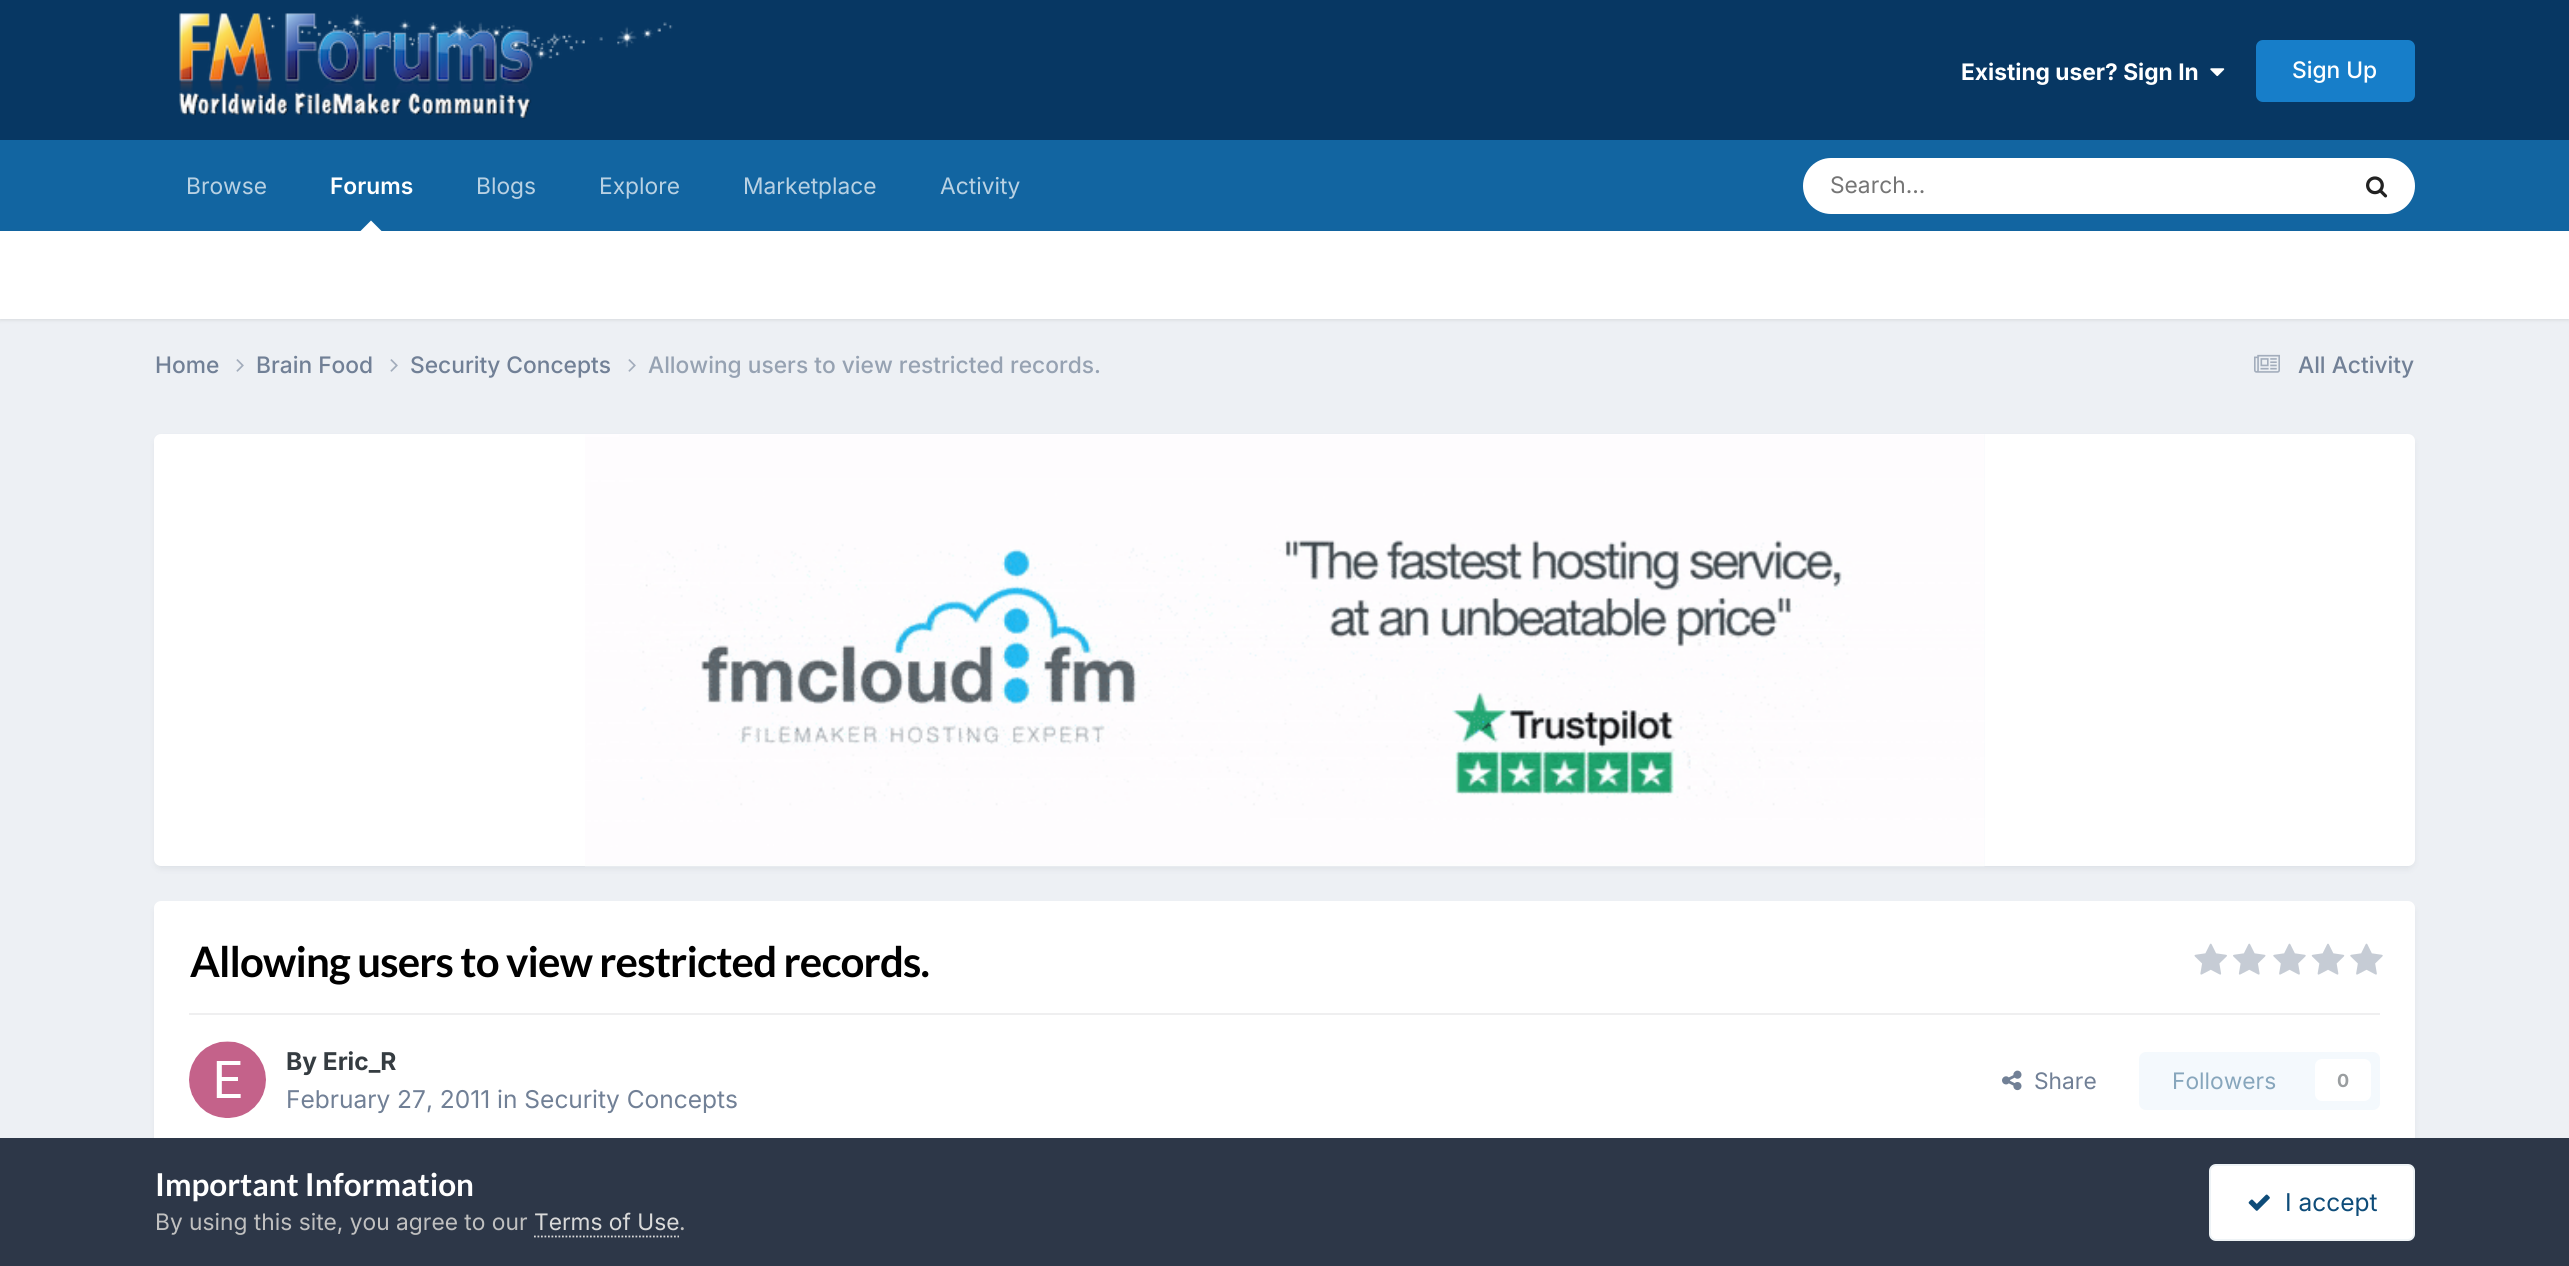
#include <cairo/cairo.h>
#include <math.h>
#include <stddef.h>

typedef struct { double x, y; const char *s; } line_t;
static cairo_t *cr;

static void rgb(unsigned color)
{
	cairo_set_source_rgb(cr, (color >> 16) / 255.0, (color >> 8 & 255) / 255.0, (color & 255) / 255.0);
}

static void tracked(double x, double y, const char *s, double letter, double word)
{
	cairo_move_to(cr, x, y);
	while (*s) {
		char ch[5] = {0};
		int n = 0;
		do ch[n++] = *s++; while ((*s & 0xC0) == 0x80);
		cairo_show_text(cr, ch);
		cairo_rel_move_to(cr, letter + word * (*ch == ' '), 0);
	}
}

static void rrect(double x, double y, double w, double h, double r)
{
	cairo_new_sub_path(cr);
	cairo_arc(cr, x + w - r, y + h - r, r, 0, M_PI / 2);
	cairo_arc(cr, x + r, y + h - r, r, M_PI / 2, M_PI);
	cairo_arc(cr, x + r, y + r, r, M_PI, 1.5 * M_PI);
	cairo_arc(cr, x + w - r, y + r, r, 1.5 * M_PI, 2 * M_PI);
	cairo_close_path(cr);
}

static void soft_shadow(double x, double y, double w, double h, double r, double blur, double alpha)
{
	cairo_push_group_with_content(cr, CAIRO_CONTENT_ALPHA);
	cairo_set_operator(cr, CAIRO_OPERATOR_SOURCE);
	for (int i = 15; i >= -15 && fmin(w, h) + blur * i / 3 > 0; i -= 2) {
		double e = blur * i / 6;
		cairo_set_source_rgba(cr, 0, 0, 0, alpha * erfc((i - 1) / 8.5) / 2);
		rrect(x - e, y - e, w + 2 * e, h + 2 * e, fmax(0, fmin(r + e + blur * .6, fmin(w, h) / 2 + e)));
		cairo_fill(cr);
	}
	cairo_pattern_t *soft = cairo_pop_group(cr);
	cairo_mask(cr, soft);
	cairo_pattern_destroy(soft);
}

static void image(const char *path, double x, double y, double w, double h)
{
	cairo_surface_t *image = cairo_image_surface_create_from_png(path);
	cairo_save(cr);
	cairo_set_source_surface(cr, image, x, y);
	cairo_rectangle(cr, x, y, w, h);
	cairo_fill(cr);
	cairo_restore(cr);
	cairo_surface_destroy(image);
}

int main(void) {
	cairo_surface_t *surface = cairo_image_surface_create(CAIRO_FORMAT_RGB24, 2569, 1266);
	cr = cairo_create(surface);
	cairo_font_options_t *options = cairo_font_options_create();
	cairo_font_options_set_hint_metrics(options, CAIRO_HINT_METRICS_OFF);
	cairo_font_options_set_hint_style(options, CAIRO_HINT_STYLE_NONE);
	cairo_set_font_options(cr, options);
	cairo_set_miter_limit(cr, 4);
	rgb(0xedf0f4);
	cairo_paint(cr);
	rgb(0x073763);
	cairo_rectangle(cr, 0, 0, 2569, 140);
	cairo_fill(cr);
	image("img/1.png", 179, 13, 494, 106);
	image("img/2.png", 2210, 68, 15, 9);
	rgb(0x177ec9);
	rrect(2256, 40, 159, 62, 7);
	cairo_fill(cr);
	rgb(0x1265a1);
	cairo_rectangle(cr, 0, 140, 2569, 91);
	cairo_fill(cr);
	rgb(0x000000);
	soft_shadow(0, 233, 2569, 87, 0, 2, 0.1);
	rgb(0xffffff);
	cairo_new_path(cr);
	cairo_move_to(cr, 381.5, 231);
	cairo_line_to(cr, 360.5, 231);
	cairo_line_to(cr, 371, 220.5);
	cairo_close_path(cr);
	cairo_fill(cr);
	rrect(1803, 158, 612, 56, 28);
	cairo_fill(cr);
	image("img/3.png", 2366, 176, 22, 22);
	cairo_rectangle(cr, 0, 231, 2569, 88);
	cairo_fill(cr);
	image("img/4.png", 236, 359, 8, 13);
	image("img/4.png", 390, 359, 8, 13);
	image("img/4.png", 628, 359, 8, 13);
	image("img/5.png", 2254, 354, 26, 19);
	rgb(0x2d3748);
	soft_shadow(156, 439, 2257, 429, 5, 3.5, 0.1);
	rgb(0xffffff);
	rrect(154, 434, 2261, 432, 7);
	cairo_fill(cr);
	rgb(0xf7fafc);
	cairo_rectangle(cr, 1984, 434, 1, 432);
	cairo_fill(cr);
	image("img/6.png", 585, 434, 1400, 433);
	rgb(0x2d3748);
	soft_shadow(156, 907, 2257, 248, 5, 3.5, 0.1);
	rgb(0xffffff);
	rrect(154, 901, 2261, 252, 7);
	cairo_fill(cr);
	image("img/7.png", 2194, 943, 33, 32);
	image("img/8.png", 2233, 943, 33, 32);
	image("img/9.png", 2273, 943, 33, 32);
	image("img/10.png", 2311, 943, 34, 32);
	image("img/9.png", 2350, 943, 33, 32);
	rgb(0xefeff0);
	cairo_rectangle(cr, 189, 1013, 2191, 2);
	cairo_fill(cr);
	image("img/11.png", 189, 1041, 77, 77);
	image("img/12.png", 2002, 1070, 20, 21);
	rgb(0xf4f9fd);
	rrect(2139, 1052, 241, 58, 7);
	cairo_fill(cr);
	rgb(0xffffff);
	rrect(2315, 1059, 56, 42, 7);
	cairo_fill(cr);
	rgb(0x2d3748);
	cairo_rectangle(cr, 0, 1138, 2569, 128);
	cairo_fill(cr);
	cairo_new_path(cr);
	cairo_move_to(cr, 534, 1236.5);
	cairo_line_to(cr, 679, 1236.5);
	rgb(0xdadada);
	cairo_set_line_width(cr, 1.8);
	cairo_set_dash(cr, (double[]){1.75, 1.75}, 2, 0);
	cairo_stroke(cr);
	rgb(0xffffff);
	rrect(2209, 1164, 206, 77, 7);
	cairo_fill(cr);
	rrect(2210, 1165, 204, 75, 6);
	cairo_set_source_rgba(cr, 0.055, 0.298, 0.475, 0.07);
	cairo_set_line_width(cr, 2);
	cairo_set_dash(cr, NULL, 0, 0);
	cairo_stroke(cr);
	image("img/13.png", 2248, 1194, 22, 17);
	cairo_select_font_face(cr, "Inter", CAIRO_FONT_SLANT_NORMAL, CAIRO_FONT_WEIGHT_BOLD);
	cairo_set_font_size(cr, 22.75);
	rgb(0xffffff);
	cairo_move_to(cr, 1961, 80);
	cairo_show_text(cr, "Existing user? Sign In");
	cairo_select_font_face(cr, "Inter Medium", CAIRO_FONT_SLANT_NORMAL, CAIRO_FONT_WEIGHT_NORMAL);
	cairo_move_to(cr, 2292, 78);
	cairo_show_text(cr, "Sign Up");
	cairo_select_font_face(cr, "Inter", CAIRO_FONT_SLANT_NORMAL, CAIRO_FONT_WEIGHT_NORMAL);
	rgb(0xb8d1e3);
	cairo_move_to(cr, 186, 194);
	cairo_show_text(cr, "Browse");
	cairo_select_font_face(cr, "Inter SemiBold", CAIRO_FONT_SLANT_NORMAL, CAIRO_FONT_WEIGHT_NORMAL);
	rgb(0xffffff);
	cairo_move_to(cr, 330, 194);
	cairo_show_text(cr, "Forums");
	cairo_select_font_face(cr, "Inter", CAIRO_FONT_SLANT_NORMAL, CAIRO_FONT_WEIGHT_NORMAL);
	rgb(0xb8d1e3);
	{
		static const line_t items[] = {
			{476, 194, "Blogs"},
			{599, 194, "Explore"},
			{743, 194, "Marketplace"},
			{940, 194, "Activity"},
		};
		for (size_t i = 0; i < sizeof items / sizeof *items; i++) {
			cairo_move_to(cr, items[i].x, items[i].y);
			cairo_show_text(cr, items[i].s);
		}
	}
	rgb(0x757575);
	cairo_move_to(cr, 1830, 193);
	cairo_show_text(cr, "Search...");
	cairo_select_font_face(cr, "Inter Medium", CAIRO_FONT_SLANT_NORMAL, CAIRO_FONT_WEIGHT_NORMAL);
	rgb(0x718096);
	{
		static const line_t items[] = {
			{155, 373, "Home"},
			{256, 373, "Brain Food"},
			{410, 373, "Security Concepts"},
		};
		for (size_t i = 0; i < sizeof items / sizeof *items; i++) {
			cairo_move_to(cr, items[i].x, items[i].y);
			cairo_show_text(cr, items[i].s);
		}
	}
	rgb(0x96a2b2);
	cairo_move_to(cr, 648, 373);
	cairo_show_text(cr, "Allowing users to view restricted records.");
	rgb(0x718096);
	cairo_move_to(cr, 2298, 373);
	cairo_show_text(cr, "All Activity");
	cairo_select_font_face(cr, "Lato", CAIRO_FONT_SLANT_NORMAL, CAIRO_FONT_WEIGHT_BOLD);
	cairo_set_font_size(cr, 42);
	rgb(0x000000);
	tracked(190, 977, "Allowing users to view restricted records.", -0.85, 0);
	cairo_select_font_face(cr, "Inter", CAIRO_FONT_SLANT_NORMAL, CAIRO_FONT_WEIGHT_BOLD);
	cairo_set_font_size(cr, 24.5);
	rgb(0x353c41);
	cairo_move_to(cr, 286, 1070);
	cairo_show_text(cr, "By Eric_R");
	cairo_select_font_face(cr, "Inter", CAIRO_FONT_SLANT_NORMAL, CAIRO_FONT_WEIGHT_NORMAL);
	rgb(0x718096);
	cairo_move_to(cr, 286, 1108);
	cairo_show_text(cr, "February 27, 2011 in Security Concepts");
	cairo_set_font_size(cr, 22.75);
	cairo_move_to(cr, 2034, 1089);
	cairo_show_text(cr, "Share");
	rgb(0x87a6bc);
	cairo_move_to(cr, 2172, 1089);
	cairo_show_text(cr, "Followers");
	cairo_select_font_face(cr, "Inter", CAIRO_FONT_SLANT_NORMAL, CAIRO_FONT_WEIGHT_BOLD);
	cairo_set_font_size(cr, 18);
	rgb(0x9a9ea0);
	cairo_move_to(cr, 2337, 1087);
	cairo_show_text(cr, "0");
	cairo_select_font_face(cr, "Lato", CAIRO_FONT_SLANT_NORMAL, CAIRO_FONT_WEIGHT_BOLD);
	cairo_set_font_size(cr, 31.5);
	rgb(0xffffff);
	cairo_move_to(cr, 155, 1196);
	cairo_show_text(cr, "Important Information");
	cairo_select_font_face(cr, "Inter", CAIRO_FONT_SLANT_NORMAL, CAIRO_FONT_WEIGHT_NORMAL);
	cairo_set_font_size(cr, 22.75);
	rgb(0xc0c0c0);
	cairo_move_to(cr, 155, 1230);
	cairo_show_text(cr, "By using this site, you agree to our");
	rgb(0xdadada);
	cairo_move_to(cr, 534, 1230);
	cairo_show_text(cr, "Terms of Use");
	rgb(0xc0c0c0);
	cairo_move_to(cr, 679, 1230);
	cairo_show_text(cr, ".");
	cairo_set_font_size(cr, 24.5);
	rgb(0x0e4c79);
	cairo_move_to(cr, 2285, 1211);
	cairo_show_text(cr, "I accept");
	cairo_surface_write_to_png(surface, "page.png");
	cairo_font_options_destroy(options);
	cairo_destroy(cr);
	cairo_surface_destroy(surface);
	return 0;
}
